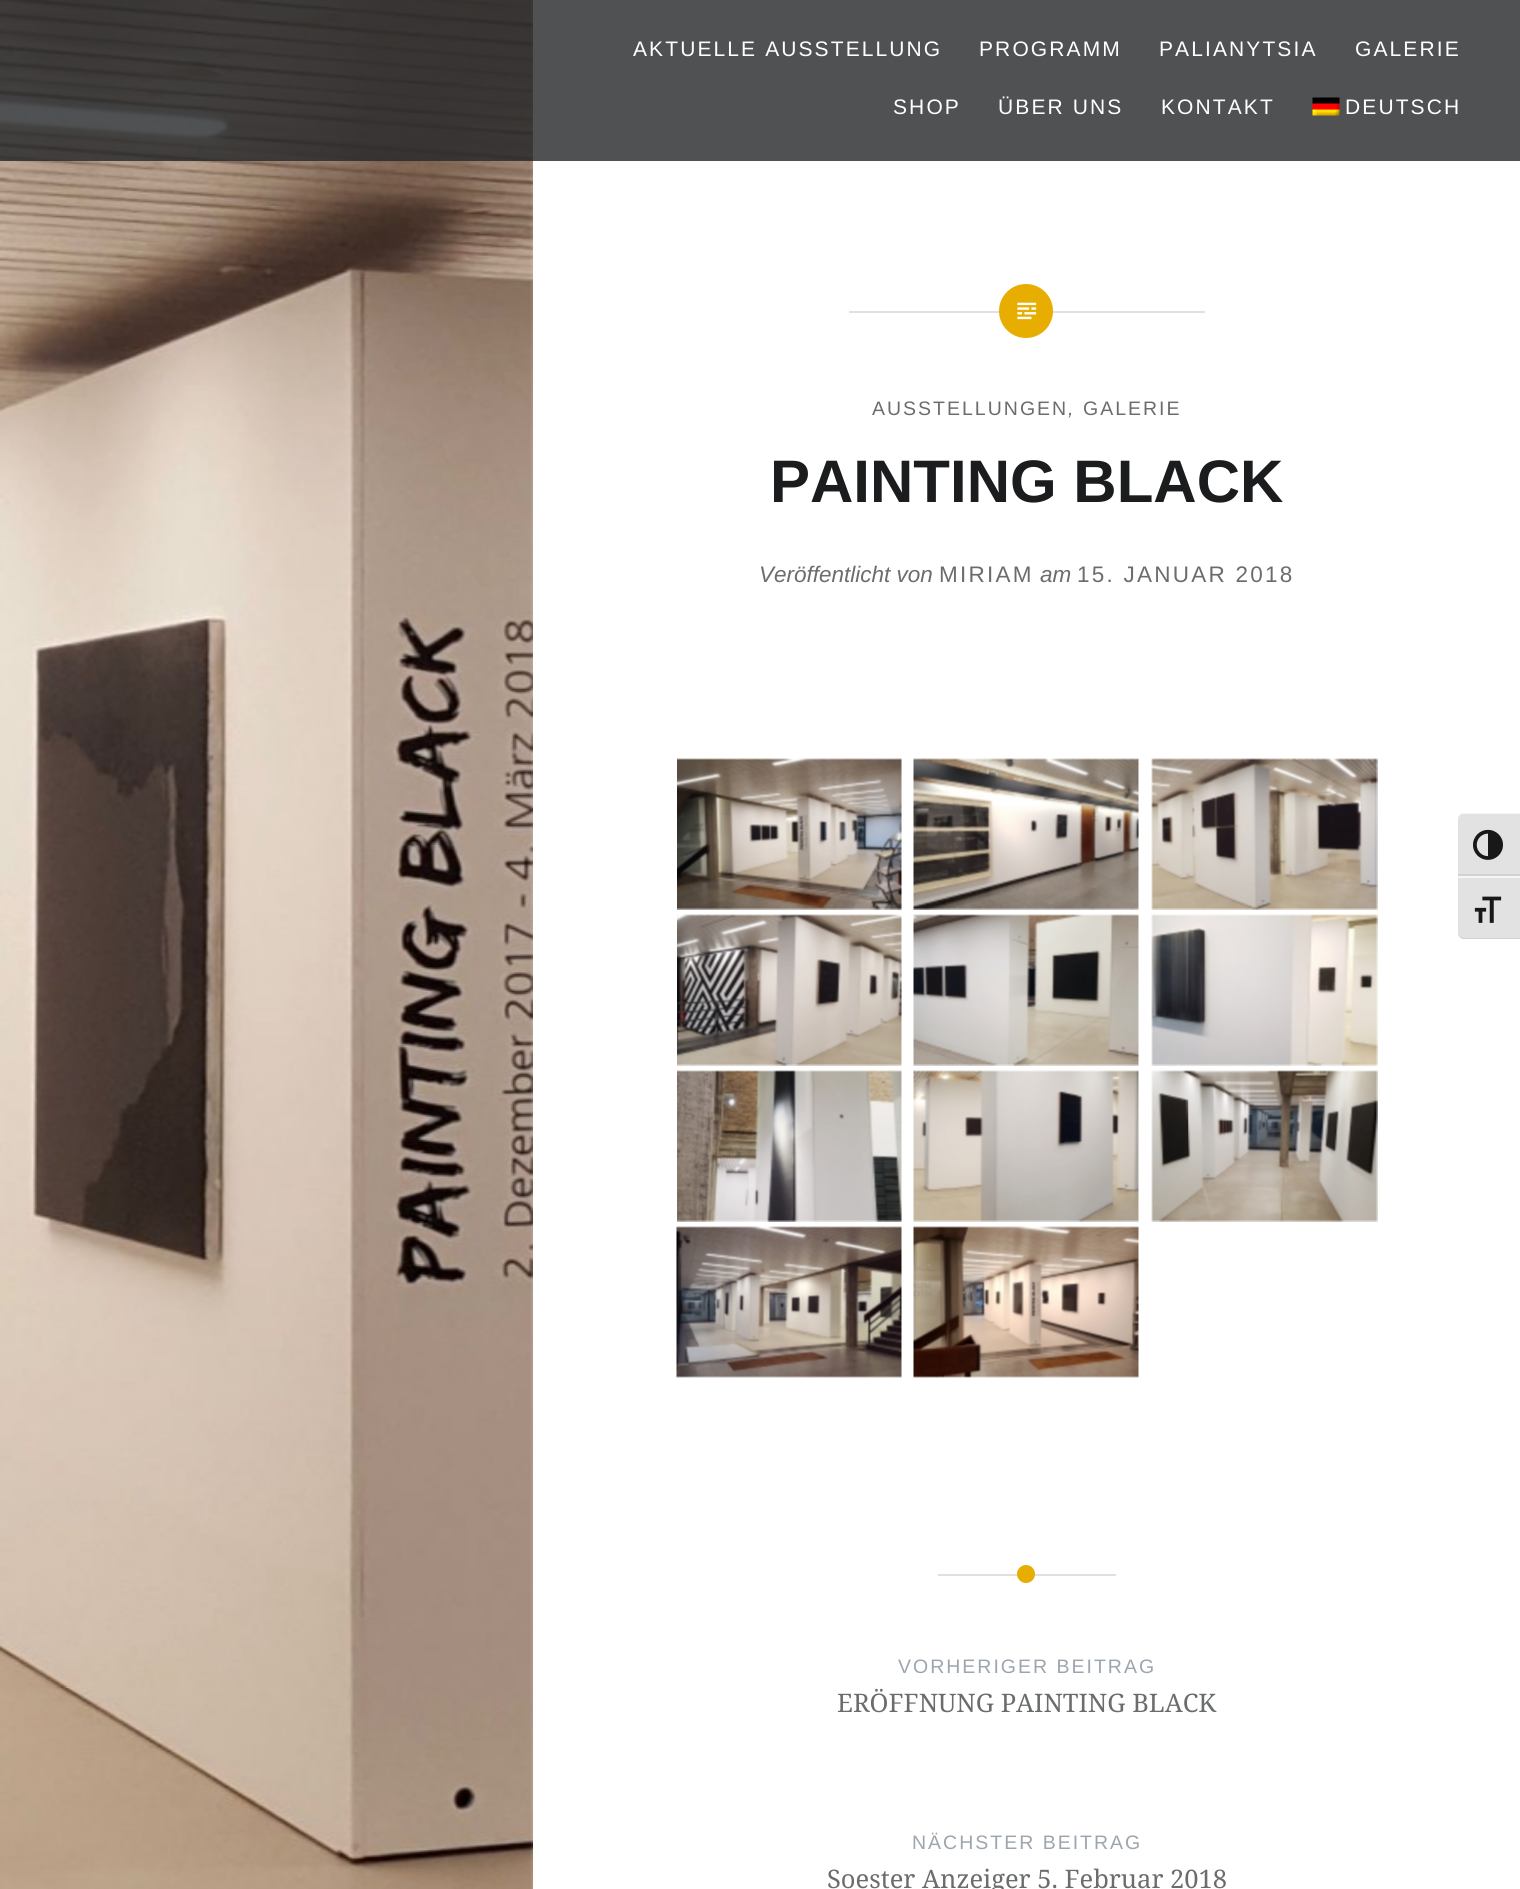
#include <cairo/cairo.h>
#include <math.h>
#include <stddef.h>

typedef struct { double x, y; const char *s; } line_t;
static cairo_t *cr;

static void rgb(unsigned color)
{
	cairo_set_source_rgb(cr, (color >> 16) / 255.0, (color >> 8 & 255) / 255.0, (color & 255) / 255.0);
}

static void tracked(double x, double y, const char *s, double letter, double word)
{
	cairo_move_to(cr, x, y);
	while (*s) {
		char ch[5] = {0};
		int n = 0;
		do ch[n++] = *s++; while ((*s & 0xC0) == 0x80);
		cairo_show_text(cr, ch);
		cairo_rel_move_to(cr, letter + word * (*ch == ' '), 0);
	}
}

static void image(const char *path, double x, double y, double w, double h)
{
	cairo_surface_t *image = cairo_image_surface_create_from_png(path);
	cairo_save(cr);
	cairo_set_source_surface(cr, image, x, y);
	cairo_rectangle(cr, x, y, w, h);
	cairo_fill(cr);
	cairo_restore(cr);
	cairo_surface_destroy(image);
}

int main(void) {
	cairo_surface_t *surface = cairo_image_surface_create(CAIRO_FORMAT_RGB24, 1520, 1889);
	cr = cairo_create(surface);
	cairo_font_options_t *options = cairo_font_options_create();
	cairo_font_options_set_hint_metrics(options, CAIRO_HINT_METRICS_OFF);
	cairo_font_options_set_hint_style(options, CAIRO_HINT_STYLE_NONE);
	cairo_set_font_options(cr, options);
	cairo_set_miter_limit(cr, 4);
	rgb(0xffffff);
	cairo_paint(cr);
	image("img/2.png", 0, 0, 533, 1889);
	cairo_set_source_rgba(cr, 0.141, 0.149, 0.161, 0.8);
	cairo_rectangle(cr, 0, 0, 1520, 161);
	cairo_fill(cr);
	image("img/1.png", 1312, 97, 28, 19);
	rgb(0xe0e0e0);
	cairo_rectangle(cr, 849, 311, 356, 2);
	cairo_fill(cr);
	rgb(0xe7ae01);
	cairo_arc(cr, 1026, 311, 27, 0, 2 * M_PI);
	cairo_fill(cr);
	image("img/3.png", 1017, 302, 20, 18);
	image("img/4.png", 677, 758, 225, 152);
	image("img/5.png", 913, 758, 226, 152);
	image("img/6.png", 1151, 758, 227, 152);
	image("img/7.png", 677, 914, 225, 152);
	image("img/8.png", 913, 914, 226, 152);
	image("img/9.png", 1151, 914, 227, 152);
	image("img/10.png", 677, 1070, 225, 152);
	image("img/11.png", 913, 1070, 226, 152);
	image("img/12.png", 1151, 1070, 227, 152);
	image("img/13.png", 676, 1226, 226, 152);
	image("img/14.png", 913, 1226, 226, 152);
	rgb(0xe0e0e0);
	cairo_rectangle(cr, 938, 1574, 178, 2);
	cairo_fill(cr);
	rgb(0xe7ae01);
	cairo_arc(cr, 1026, 1574, 9, 0, 2 * M_PI);
	cairo_fill(cr);
	rgb(0xe2e2e2);
	cairo_new_path(cr);
	cairo_move_to(cr, 1464, 813);
	cairo_line_to(cr, 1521, 813);
	cairo_line_to(cr, 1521, 876);
	cairo_line_to(cr, 1458, 876);
	cairo_line_to(cr, 1458, 819);
	cairo_curve_to(cr, 1458, 815.5, 1460.5, 813, 1464, 813);
	cairo_close_path(cr);
	cairo_fill(cr);
	rgb(0xf5f5f5);
	cairo_new_path(cr);
	cairo_move_to(cr, 1464, 814);
	cairo_line_to(cr, 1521, 814);
	cairo_line_to(cr, 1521, 813);
	cairo_line_to(cr, 1464, 813);
	cairo_curve_to(cr, 1461, 813, 1458, 816, 1458, 819);
	cairo_curve_to(cr, 1458, 817, 1461, 814, 1464, 814);
	cairo_close_path(cr);
	cairo_fill(cr);
	rgb(0xd2d2d2);
	cairo_rectangle(cr, 1458, 874, 62, 2);
	cairo_fill(cr);
	image("img/15.png", 1473, 829, 30, 31);
	rgb(0xe2e2e2);
	cairo_new_path(cr);
	cairo_move_to(cr, 1458, 876);
	cairo_line_to(cr, 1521, 876);
	cairo_line_to(cr, 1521, 939);
	cairo_line_to(cr, 1464, 939);
	cairo_curve_to(cr, 1460.5, 939, 1458, 936.5, 1458, 933);
	cairo_close_path(cr);
	cairo_fill(cr);
	rgb(0xf5f5f5);
	cairo_rectangle(cr, 1458, 876, 62, 2);
	cairo_fill(cr);
	rgb(0xd2d2d2);
	cairo_new_path(cr);
	cairo_move_to(cr, 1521, 939);
	cairo_line_to(cr, 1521, 938);
	cairo_line_to(cr, 1464, 938);
	cairo_curve_to(cr, 1461, 938, 1458, 935, 1458, 933);
	cairo_curve_to(cr, 1458, 936, 1461, 939, 1464, 939);
	cairo_close_path(cr);
	cairo_fill(cr);
	image("img/16.png", 1474, 896, 28, 27);
	cairo_select_font_face(cr, "Liberation Sans", CAIRO_FONT_SLANT_NORMAL, CAIRO_FONT_WEIGHT_NORMAL);
	cairo_set_font_size(cr, 21);
	rgb(0xffffff);
	{
		static const line_t items[] = {
			{633, 56, "AKTUELLE AUSSTELLUNG"},
			{979, 56, "PROGRAMM"},
			{1159, 56, "PALIANYTSIA"},
			{1355, 56, "GALERIE"},
			{893, 114, "SHOP"},
			{998, 114, "ÜBER UNS"},
			{1161, 114, "KONTAKT"},
			{1345, 114, "DEUTSCH"},
		};
		for (size_t i = 0; i < sizeof items / sizeof *items; i++) {
			tracked(items[i].x, items[i].y, items[i].s, 2.1, 0);
		}
	}
	cairo_set_font_size(cr, 19.5);
	rgb(0x6a6c6e);
	tracked(872, 415, "AUSSTELLUNGEN", 2, 0);
	cairo_select_font_face(cr, "Liberation Sans", CAIRO_FONT_SLANT_ITALIC, CAIRO_FONT_WEIGHT_NORMAL);
	tracked(1068, 415, ",", 2, 0);
	cairo_select_font_face(cr, "Liberation Sans", CAIRO_FONT_SLANT_NORMAL, CAIRO_FONT_WEIGHT_NORMAL);
	tracked(1083, 415, "GALERIE", 2, 0);
	cairo_select_font_face(cr, "Liberation Sans", CAIRO_FONT_SLANT_NORMAL, CAIRO_FONT_WEIGHT_BOLD);
	cairo_set_font_size(cr, 60);
	rgb(0x1a1c1e);
	cairo_move_to(cr, 770, 502);
	cairo_show_text(cr, "PAINTING BLACK");
	cairo_select_font_face(cr, "Liberation Sans", CAIRO_FONT_SLANT_ITALIC, CAIRO_FONT_WEIGHT_NORMAL);
	cairo_set_font_size(cr, 22.5);
	rgb(0x6a6c6e);
	cairo_move_to(cr, 759, 582);
	cairo_show_text(cr, "Veröffentlicht von");
	cairo_select_font_face(cr, "Liberation Sans", CAIRO_FONT_SLANT_NORMAL, CAIRO_FONT_WEIGHT_NORMAL);
	tracked(939, 582, "MIRIAM", 2.25, 0);
	cairo_select_font_face(cr, "Liberation Sans", CAIRO_FONT_SLANT_ITALIC, CAIRO_FONT_WEIGHT_NORMAL);
	cairo_move_to(cr, 1040, 582);
	cairo_show_text(cr, "am");
	cairo_select_font_face(cr, "Liberation Sans", CAIRO_FONT_SLANT_NORMAL, CAIRO_FONT_WEIGHT_NORMAL);
	tracked(1077, 582, "15. JANUAR 2018", 2.25, 0);
	cairo_set_font_size(cr, 19.5);
	rgb(0x9da5ad);
	tracked(898, 1673, "VORHERIGER BEITRAG", 2, 0);
	cairo_select_font_face(cr, "Noto Serif", CAIRO_FONT_SLANT_NORMAL, CAIRO_FONT_WEIGHT_NORMAL);
	cairo_set_font_size(cr, 25.5);
	rgb(0x6a6c6e);
	cairo_move_to(cr, 837, 1712);
	cairo_show_text(cr, "ERÖFFNUNG PAINTING BLACK");
	cairo_select_font_face(cr, "Liberation Sans", CAIRO_FONT_SLANT_NORMAL, CAIRO_FONT_WEIGHT_NORMAL);
	cairo_set_font_size(cr, 19.5);
	rgb(0x9da5ad);
	tracked(912, 1849, "NÄCHSTER BEITRAG", 2, 0);
	cairo_select_font_face(cr, "Noto Serif", CAIRO_FONT_SLANT_NORMAL, CAIRO_FONT_WEIGHT_NORMAL);
	cairo_set_font_size(cr, 25.5);
	rgb(0x6a6c6e);
	cairo_move_to(cr, 827, 1888);
	cairo_show_text(cr, "Soester Anzeiger 5. Februar 2018");
	cairo_surface_write_to_png(surface, "page.png");
	cairo_font_options_destroy(options);
	cairo_destroy(cr);
	cairo_surface_destroy(surface);
	return 0;
}
